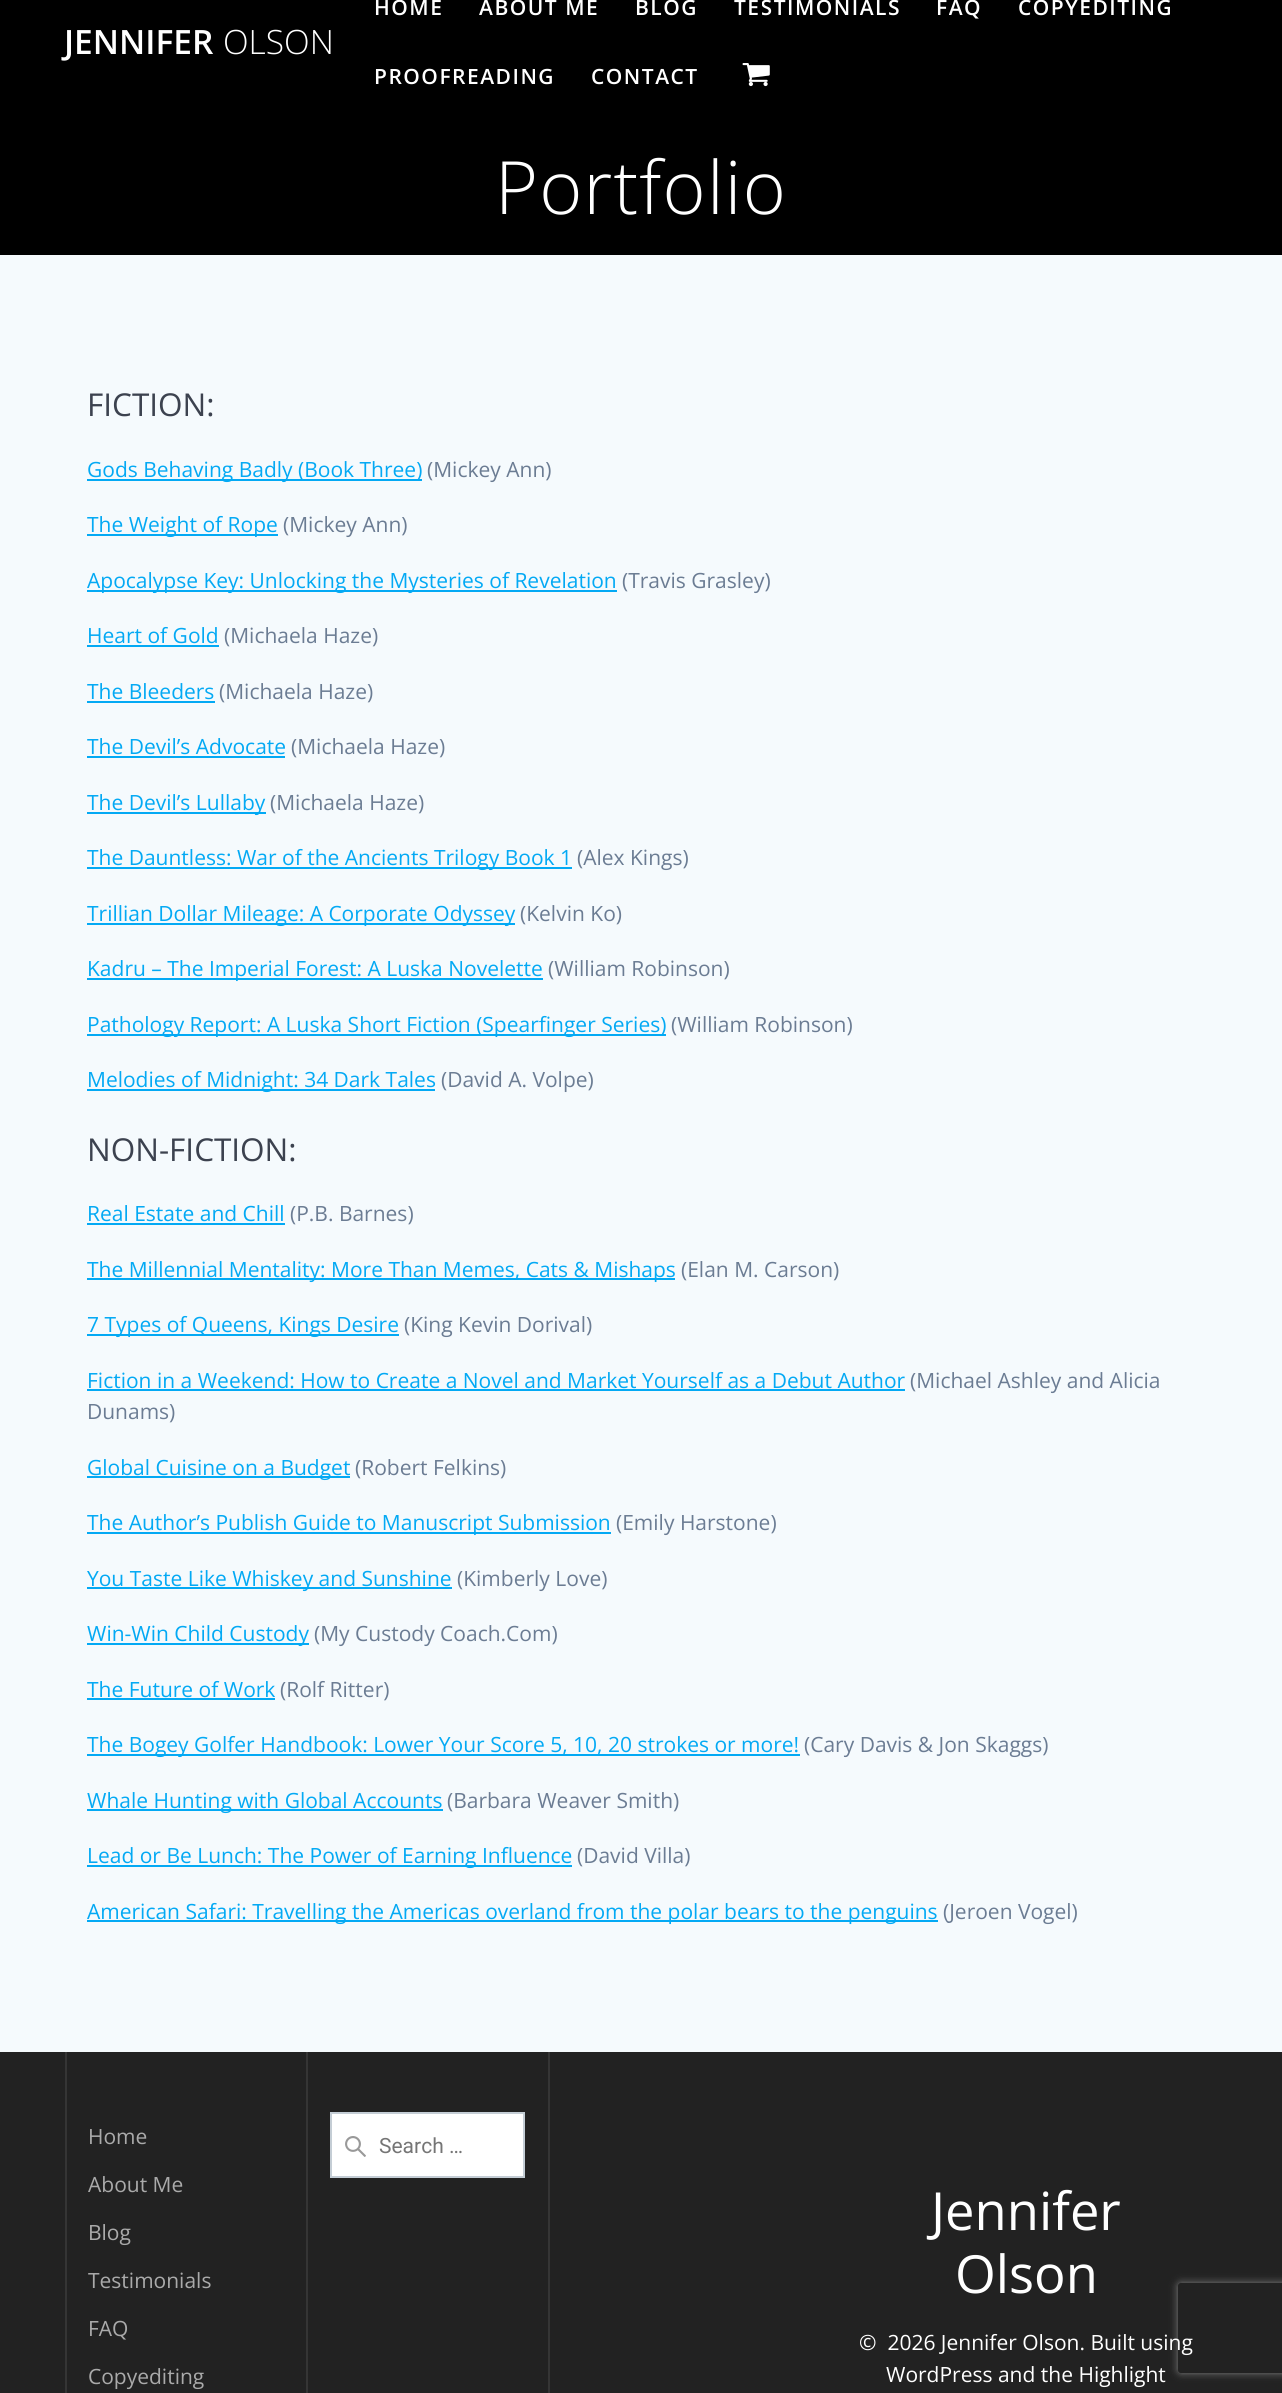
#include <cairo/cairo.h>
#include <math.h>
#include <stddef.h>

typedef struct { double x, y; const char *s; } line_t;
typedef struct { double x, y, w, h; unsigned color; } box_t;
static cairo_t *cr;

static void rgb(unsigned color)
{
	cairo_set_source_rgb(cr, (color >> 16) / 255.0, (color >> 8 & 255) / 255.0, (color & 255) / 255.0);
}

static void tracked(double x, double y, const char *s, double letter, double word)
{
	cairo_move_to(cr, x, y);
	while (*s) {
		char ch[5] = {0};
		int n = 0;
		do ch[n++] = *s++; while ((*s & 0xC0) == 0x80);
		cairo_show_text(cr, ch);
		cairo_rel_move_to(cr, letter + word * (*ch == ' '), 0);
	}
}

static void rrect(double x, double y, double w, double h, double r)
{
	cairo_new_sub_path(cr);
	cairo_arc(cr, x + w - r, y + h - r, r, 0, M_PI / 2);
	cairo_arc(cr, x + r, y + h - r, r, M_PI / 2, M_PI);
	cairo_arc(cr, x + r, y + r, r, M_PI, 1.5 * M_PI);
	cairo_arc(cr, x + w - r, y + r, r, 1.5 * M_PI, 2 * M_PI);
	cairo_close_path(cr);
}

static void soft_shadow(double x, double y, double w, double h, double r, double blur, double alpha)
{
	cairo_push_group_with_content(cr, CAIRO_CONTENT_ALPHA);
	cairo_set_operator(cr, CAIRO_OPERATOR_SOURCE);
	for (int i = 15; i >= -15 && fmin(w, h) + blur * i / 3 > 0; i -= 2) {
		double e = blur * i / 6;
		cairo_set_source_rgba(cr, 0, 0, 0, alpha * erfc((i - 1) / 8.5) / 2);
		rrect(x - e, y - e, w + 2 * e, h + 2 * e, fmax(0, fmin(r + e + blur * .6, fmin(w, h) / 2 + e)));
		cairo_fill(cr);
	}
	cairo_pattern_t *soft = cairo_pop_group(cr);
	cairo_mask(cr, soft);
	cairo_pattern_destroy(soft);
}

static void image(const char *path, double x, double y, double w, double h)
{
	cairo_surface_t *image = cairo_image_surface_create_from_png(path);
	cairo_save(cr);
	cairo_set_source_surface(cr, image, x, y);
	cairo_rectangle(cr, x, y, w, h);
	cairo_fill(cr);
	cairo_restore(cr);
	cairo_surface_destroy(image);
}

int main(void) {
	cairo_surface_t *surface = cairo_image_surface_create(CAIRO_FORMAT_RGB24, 1282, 2393);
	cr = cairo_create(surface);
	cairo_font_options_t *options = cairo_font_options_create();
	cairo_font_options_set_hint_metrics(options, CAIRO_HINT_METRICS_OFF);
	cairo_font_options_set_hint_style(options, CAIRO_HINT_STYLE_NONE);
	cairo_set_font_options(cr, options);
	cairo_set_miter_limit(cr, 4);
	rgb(0x000000);
	cairo_paint(cr);
	image("img/1.png", 742, 63, 28, 24);
	{
		static const box_t items[] = {
			{0, 255, 1282, 1797, 0xf5fafd},
			{87, 479, 335, 2, 0x03a9f4},
			{87, 534, 191, 2, 0x03a9f4},
			{87, 590, 530, 2, 0x03a9f4},
			{87, 645, 132, 2, 0x03a9f4},
			{87, 701, 128, 2, 0x03a9f4},
			{87, 756, 198, 2, 0x03a9f4},
			{87, 812, 179, 2, 0x03a9f4},
			{87, 867, 485, 2, 0x03a9f4},
			{87, 923, 428, 2, 0x03a9f4},
			{87, 978, 456, 2, 0x03a9f4},
			{87, 1034, 579, 2, 0x03a9f4},
			{87, 1089, 348, 2, 0x03a9f4},
			{87, 1223, 198, 2, 0x03a9f4},
			{87, 1278, 588, 2, 0x03a9f4},
			{87, 1334, 312, 2, 0x03a9f4},
			{87, 1389, 818, 2, 0x03a9f4},
			{87, 1476, 263, 2, 0x03a9f4},
			{87, 1532, 524, 2, 0x03a9f4},
			{87, 1587, 365, 2, 0x03a9f4},
			{87, 1643, 222, 2, 0x03a9f4},
			{87, 1698, 188, 2, 0x03a9f4},
			{87, 1754, 713, 2, 0x03a9f4},
			{87, 1809, 356, 2, 0x03a9f4},
			{87, 1865, 485, 2, 0x03a9f4},
			{87, 1920, 851, 2, 0x03a9f4},
			{0, 2052, 1282, 341, 0x222222},
			{65, 2052, 2, 341, 0x353535},
			{306, 2052, 2, 341, 0x353535},
			{332, 2114, 191, 62, 0xffffff},
		};
		for (size_t i = 0; i < sizeof items / sizeof *items; i++) {
			rgb(items[i].color);
			cairo_rectangle(cr, items[i].x, items[i].y, items[i].w, items[i].h);
			cairo_fill(cr);
		}
	}
	image("img/2.png", 345, 2136, 21, 21);
	cairo_rectangle(cr, 331, 2113, 193, 64);
	rgb(0xc4cdd5);
	cairo_stroke(cr);
	rgb(0x353535);
	cairo_rectangle(cr, 548, 2052, 2, 341);
	cairo_fill(cr);
	cairo_save(cr);
	cairo_set_fill_rule(cr, CAIRO_FILL_RULE_EVEN_ODD);
	cairo_new_path(cr);
	cairo_move_to(cr, 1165, 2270);
	cairo_line_to(cr, 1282, 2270);
	cairo_line_to(cr, 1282, 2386);
	cairo_line_to(cr, 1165, 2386);
	cairo_close_path(cr);
	cairo_move_to(cr, 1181, 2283);
	cairo_line_to(cr, 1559, 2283);
	cairo_curve_to(cr, 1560.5, 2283, 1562, 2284.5, 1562, 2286);
	cairo_line_to(cr, 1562, 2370);
	cairo_curve_to(cr, 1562, 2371.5, 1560.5, 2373, 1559, 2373);
	cairo_line_to(cr, 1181, 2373);
	cairo_curve_to(cr, 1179.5, 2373, 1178, 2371.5, 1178, 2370);
	cairo_line_to(cr, 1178, 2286);
	cairo_curve_to(cr, 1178, 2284.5, 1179.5, 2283, 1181, 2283);
	cairo_close_path(cr);
	cairo_clip(cr);
	rgb(0x808080);
	soft_shadow(1178, 2283, 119, 90, 3, 4, 1);
	cairo_restore(cr);
	cairo_select_font_face(cr, "Open Sans SemiBold", CAIRO_FONT_SLANT_NORMAL, CAIRO_FONT_WEIGHT_NORMAL);
	cairo_set_font_size(cr, 33.5);
	rgb(0xffffff);
	cairo_move_to(cr, 64, 54);
	cairo_show_text(cr, "JENNIFER");
	cairo_select_font_face(cr, "Open Sans Light", CAIRO_FONT_SLANT_NORMAL, CAIRO_FONT_WEIGHT_NORMAL);
	cairo_move_to(cr, 223, 54);
	cairo_show_text(cr, "OLSON");
	cairo_select_font_face(cr, "Open Sans SemiBold", CAIRO_FONT_SLANT_NORMAL, CAIRO_FONT_WEIGHT_NORMAL);
	cairo_set_font_size(cr, 21);
	{
		static const line_t items[] = {
			{374, 15, "HOME"},
			{479, 15, "ABOUT ME"},
			{635, 15, "BLOG"},
			{734, 15, "TESTIMONIALS"},
			{936, 15, "FAQ"},
			{1018, 15, "COPYEDITING"},
			{374, 84, "PROOFREADING"},
			{591, 84, "CONTACT"},
		};
		for (size_t i = 0; i < sizeof items / sizeof *items; i++) {
			tracked(items[i].x, items[i].y, items[i].s, 1.5, 0);
		}
	}
	cairo_select_font_face(cr, "Open Sans Light", CAIRO_FONT_SLANT_NORMAL, CAIRO_FONT_WEIGHT_NORMAL);
	cairo_set_font_size(cr, 73.5);
	tracked(495, 214, "Portfolio", 1.25, 0);
	cairo_select_font_face(cr, "Open Sans", CAIRO_FONT_SLANT_NORMAL, CAIRO_FONT_WEIGHT_NORMAL);
	cairo_set_font_size(cr, 31.5);
	rgb(0x3c424f);
	cairo_move_to(cr, 87, 416);
	cairo_show_text(cr, "FICTION:");
	cairo_set_font_size(cr, 21);
	rgb(0x03a9f4);
	cairo_move_to(cr, 87, 477);
	cairo_show_text(cr, "Gods Behaving Badly (Book Three)");
	rgb(0x6b7c93);
	cairo_move_to(cr, 427, 477);
	cairo_show_text(cr, "(Mickey Ann)");
	rgb(0x03a9f4);
	cairo_move_to(cr, 87, 532);
	cairo_show_text(cr, "The Weight of Rope");
	rgb(0x6b7c93);
	cairo_move_to(cr, 283, 532);
	cairo_show_text(cr, "(Mickey Ann)");
	rgb(0x03a9f4);
	cairo_move_to(cr, 87, 588);
	cairo_show_text(cr, "Apocalypse Key: Unlocking the Mysteries of Revelation");
	rgb(0x6b7c93);
	cairo_move_to(cr, 622, 588);
	cairo_show_text(cr, "(Travis Grasley)");
	rgb(0x03a9f4);
	cairo_move_to(cr, 87, 643);
	cairo_show_text(cr, "Heart of Gold");
	rgb(0x6b7c93);
	cairo_move_to(cr, 224, 643);
	cairo_show_text(cr, "(Michaela Haze)");
	rgb(0x03a9f4);
	cairo_move_to(cr, 87, 699);
	cairo_show_text(cr, "The Bleeders");
	rgb(0x6b7c93);
	cairo_move_to(cr, 219, 699);
	cairo_show_text(cr, "(Michaela Haze)");
	rgb(0x03a9f4);
	cairo_move_to(cr, 87, 754);
	cairo_show_text(cr, "The Devil’s Advocate");
	rgb(0x6b7c93);
	cairo_move_to(cr, 291, 754);
	cairo_show_text(cr, "(Michaela Haze)");
	rgb(0x03a9f4);
	cairo_move_to(cr, 87, 810);
	cairo_show_text(cr, "The Devil’s Lullaby");
	rgb(0x6b7c93);
	cairo_move_to(cr, 270, 810);
	cairo_show_text(cr, "(Michaela Haze)");
	rgb(0x03a9f4);
	cairo_move_to(cr, 87, 865);
	cairo_show_text(cr, "The Dauntless: War of the Ancients Trilogy Book 1");
	rgb(0x6b7c93);
	cairo_move_to(cr, 577, 865);
	cairo_show_text(cr, "(Alex Kings)");
	rgb(0x03a9f4);
	cairo_move_to(cr, 87, 921);
	cairo_show_text(cr, "Trillian Dollar Mileage: A Corporate Odyssey");
	rgb(0x6b7c93);
	cairo_move_to(cr, 520, 921);
	cairo_show_text(cr, "(Kelvin Ko)");
	rgb(0x03a9f4);
	cairo_move_to(cr, 87, 976);
	cairo_show_text(cr, "Kadru – The Imperial Forest: A Luska Novelette");
	rgb(0x6b7c93);
	cairo_move_to(cr, 548, 976);
	cairo_show_text(cr, "(William Robinson)");
	rgb(0x03a9f4);
	cairo_move_to(cr, 87, 1032);
	cairo_show_text(cr, "Pathology Report: A Luska Short Fiction (Spearfinger Series)");
	rgb(0x6b7c93);
	cairo_move_to(cr, 671, 1032);
	cairo_show_text(cr, "(William Robinson)");
	rgb(0x03a9f4);
	cairo_move_to(cr, 87, 1087);
	cairo_show_text(cr, "Melodies of Midnight: 34 Dark Tales");
	rgb(0x6b7c93);
	cairo_move_to(cr, 441, 1087);
	cairo_show_text(cr, "(David A. Volpe)");
	cairo_set_font_size(cr, 31.5);
	rgb(0x3c424f);
	cairo_move_to(cr, 87, 1161);
	cairo_show_text(cr, "NON-FICTION:");
	cairo_set_font_size(cr, 21);
	rgb(0x03a9f4);
	cairo_move_to(cr, 87, 1221);
	cairo_show_text(cr, "Real Estate and Chill");
	rgb(0x6b7c93);
	cairo_move_to(cr, 290, 1221);
	cairo_show_text(cr, "(P.B. Barnes)");
	rgb(0x03a9f4);
	cairo_move_to(cr, 87, 1277);
	cairo_show_text(cr, "The Millennial Mentality: More Than Memes, Cats & Mishaps");
	rgb(0x6b7c93);
	cairo_move_to(cr, 681, 1277);
	cairo_show_text(cr, "(Elan M. Carson)");
	rgb(0x03a9f4);
	cairo_move_to(cr, 87, 1332);
	cairo_show_text(cr, "7 Types of Queens, Kings Desire");
	rgb(0x6b7c93);
	cairo_move_to(cr, 404, 1332);
	cairo_show_text(cr, "(King Kevin Dorival)");
	rgb(0x03a9f4);
	cairo_move_to(cr, 87, 1388);
	cairo_show_text(cr, "Fiction in a Weekend: How to Create a Novel and Market Yourself as a Debut Author");
	rgb(0x6b7c93);
	cairo_move_to(cr, 910, 1388);
	cairo_show_text(cr, "(Michael Ashley and Alicia");
	cairo_move_to(cr, 87, 1419);
	cairo_show_text(cr, "Dunams)");
	rgb(0x03a9f4);
	cairo_move_to(cr, 87, 1475);
	cairo_show_text(cr, "Global Cuisine on a Budget");
	rgb(0x6b7c93);
	cairo_move_to(cr, 355, 1475);
	cairo_show_text(cr, "(Robert Felkins)");
	rgb(0x03a9f4);
	cairo_move_to(cr, 87, 1530);
	cairo_show_text(cr, "The Author’s Publish Guide to Manuscript Submission");
	rgb(0x6b7c93);
	cairo_move_to(cr, 616, 1530);
	cairo_show_text(cr, "(Emily Harstone)");
	rgb(0x03a9f4);
	cairo_move_to(cr, 87, 1586);
	cairo_show_text(cr, "You Taste Like Whiskey and Sunshine");
	rgb(0x6b7c93);
	cairo_move_to(cr, 457, 1586);
	cairo_show_text(cr, "(Kimberly Love)");
	rgb(0x03a9f4);
	cairo_move_to(cr, 87, 1641);
	cairo_show_text(cr, "Win-Win Child Custody");
	rgb(0x6b7c93);
	cairo_move_to(cr, 314, 1641);
	cairo_show_text(cr, "(My Custody Coach.Com)");
	rgb(0x03a9f4);
	cairo_move_to(cr, 87, 1697);
	cairo_show_text(cr, "The Future of Work");
	rgb(0x6b7c93);
	cairo_move_to(cr, 280, 1697);
	cairo_show_text(cr, "(Rolf Ritter)");
	rgb(0x03a9f4);
	cairo_move_to(cr, 87, 1752);
	cairo_show_text(cr, "The Bogey Golfer Handbook: Lower Your Score 5, 10, 20 strokes or more!");
	rgb(0x6b7c93);
	cairo_move_to(cr, 804, 1752);
	cairo_show_text(cr, "(Cary Davis & Jon Skaggs)");
	rgb(0x03a9f4);
	cairo_move_to(cr, 87, 1808);
	cairo_show_text(cr, "Whale Hunting with Global Accounts");
	rgb(0x6b7c93);
	cairo_move_to(cr, 447, 1808);
	cairo_show_text(cr, "(Barbara Weaver Smith)");
	rgb(0x03a9f4);
	cairo_move_to(cr, 87, 1863);
	cairo_show_text(cr, "Lead or Be Lunch: The Power of Earning Influence");
	rgb(0x6b7c93);
	cairo_move_to(cr, 577, 1863);
	cairo_show_text(cr, "(David Villa)");
	rgb(0x03a9f4);
	cairo_move_to(cr, 87, 1919);
	cairo_show_text(cr, "American Safari: Travelling the Americas overland from the polar bears to the penguins");
	rgb(0x6b7c93);
	cairo_move_to(cr, 943, 1919);
	cairo_show_text(cr, "(Jeroen Vogel)");
	rgb(0xaaaaaa);
	{
		static const line_t items[] = {
			{88, 2144, "Home"},
			{88, 2192, "About Me"},
			{88, 2240, "Blog"},
			{88, 2288, "Testimonials"},
			{88, 2336, "FAQ"},
			{88, 2384, "Copyediting"},
		};
		for (size_t i = 0; i < sizeof items / sizeof *items; i++) {
			cairo_move_to(cr, items[i].x, items[i].y);
			cairo_show_text(cr, items[i].s);
		}
	}
	cairo_select_font_face(cr, "Roboto", CAIRO_FONT_SLANT_NORMAL, CAIRO_FONT_WEIGHT_NORMAL);
	rgb(0x757575);
	cairo_move_to(cr, 379, 2153);
	cairo_show_text(cr, "Search …");
	cairo_select_font_face(cr, "Open Sans", CAIRO_FONT_SLANT_NORMAL, CAIRO_FONT_WEIGHT_NORMAL);
	cairo_set_font_size(cr, 52.5);
	rgb(0xffffff);
	cairo_move_to(cr, 931, 2230);
	cairo_show_text(cr, "Jennifer");
	cairo_move_to(cr, 955, 2293);
	cairo_show_text(cr, "Olson");
	cairo_set_font_size(cr, 21);
	cairo_move_to(cr, 859, 2350);
	cairo_show_text(cr, "©  2026 Jennifer Olson. Built using");
	cairo_move_to(cr, 886, 2382);
	cairo_show_text(cr, "WordPress and the Highlight");
	cairo_surface_write_to_png(surface, "page.png");
	cairo_font_options_destroy(options);
	cairo_destroy(cr);
	cairo_surface_destroy(surface);
	return 0;
}
